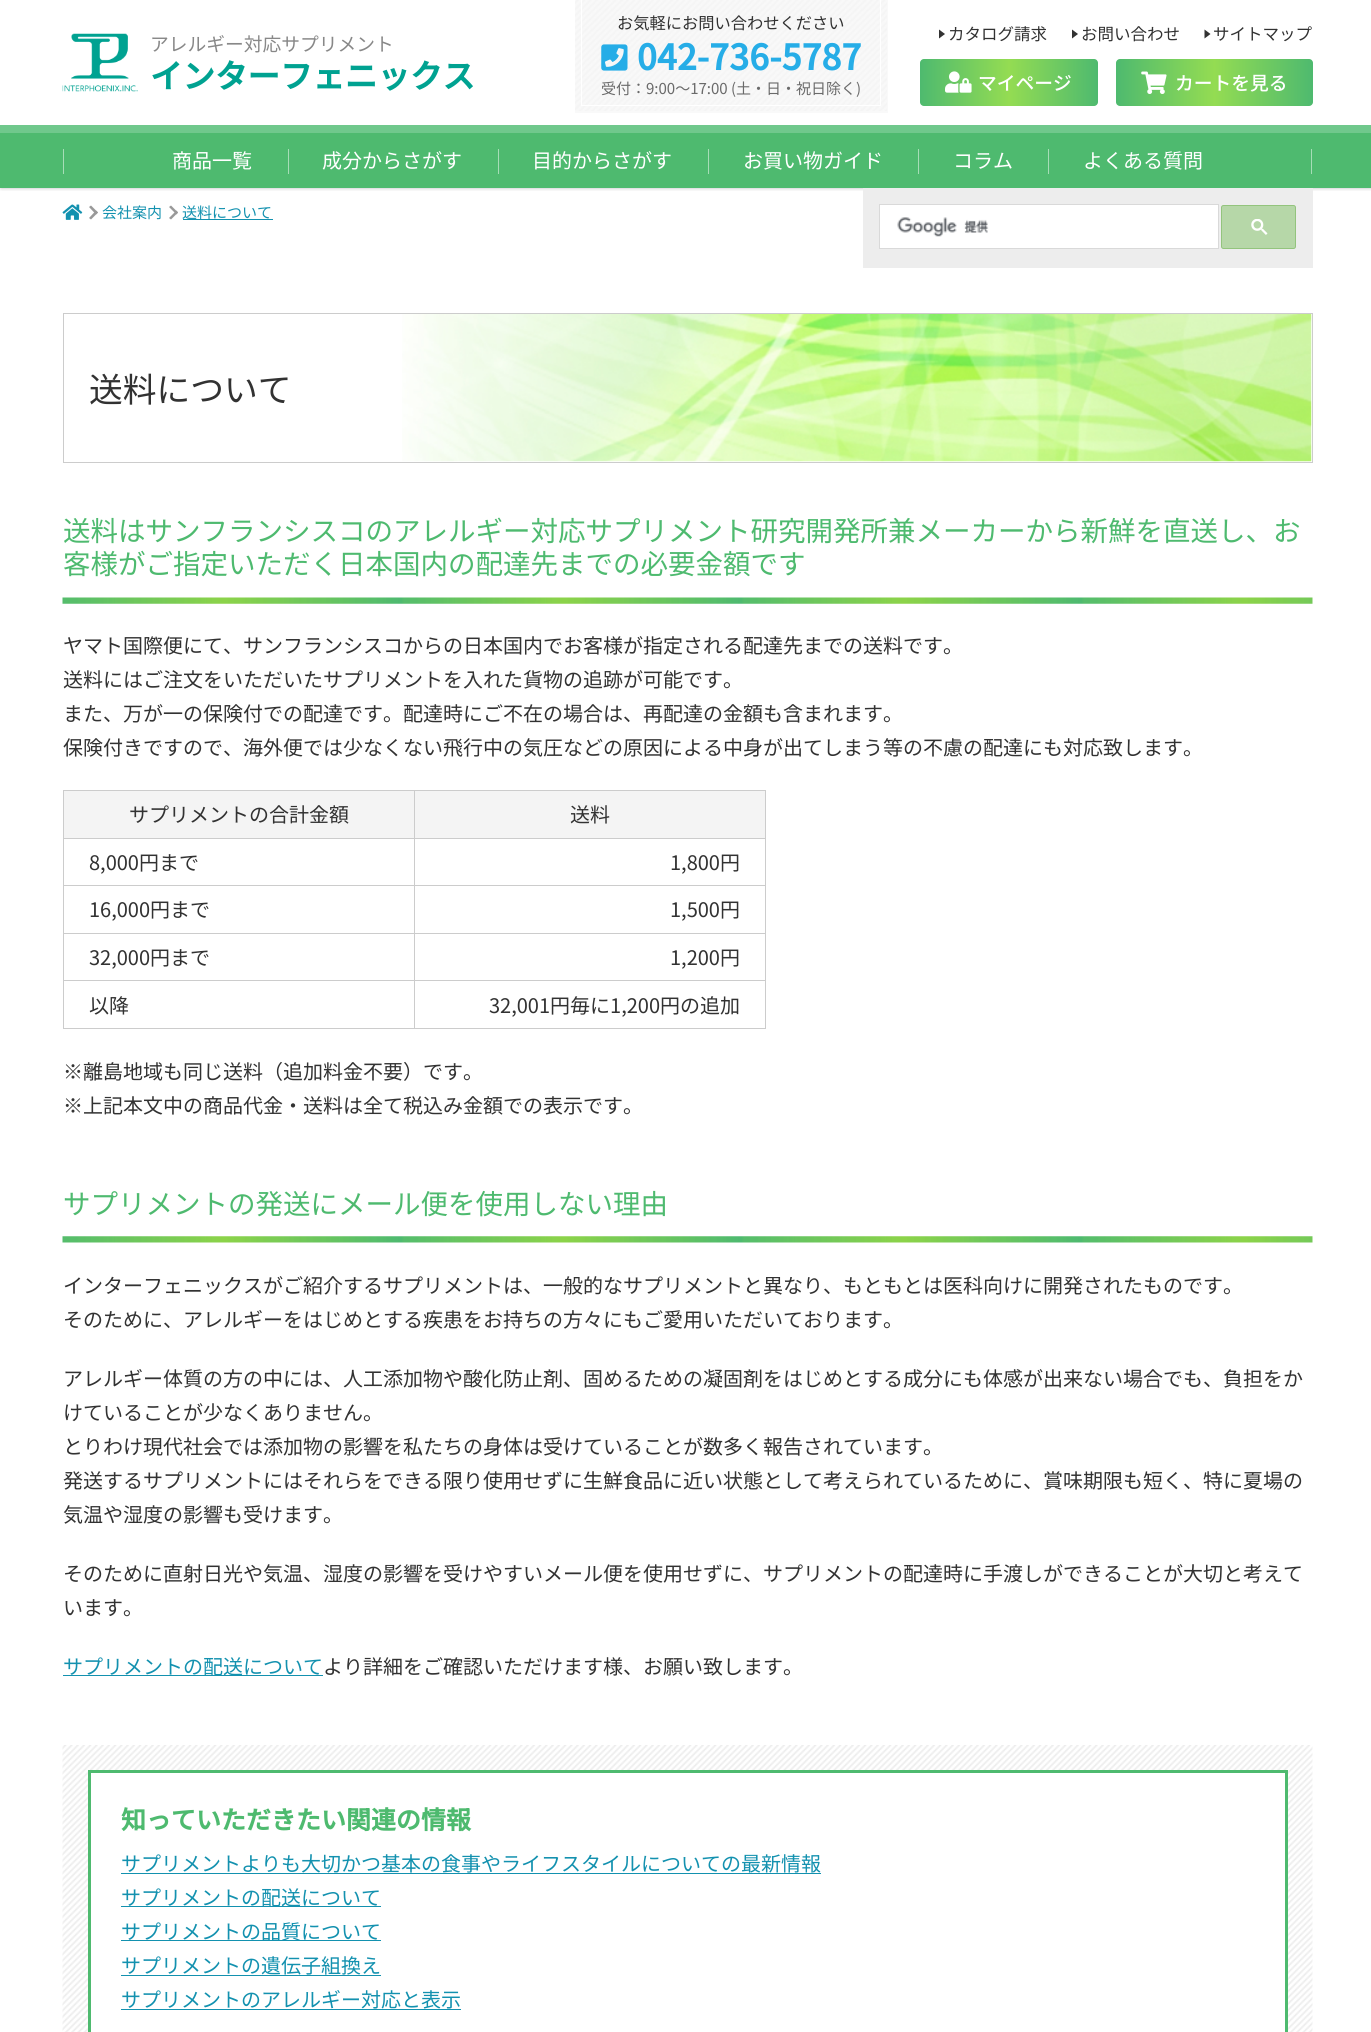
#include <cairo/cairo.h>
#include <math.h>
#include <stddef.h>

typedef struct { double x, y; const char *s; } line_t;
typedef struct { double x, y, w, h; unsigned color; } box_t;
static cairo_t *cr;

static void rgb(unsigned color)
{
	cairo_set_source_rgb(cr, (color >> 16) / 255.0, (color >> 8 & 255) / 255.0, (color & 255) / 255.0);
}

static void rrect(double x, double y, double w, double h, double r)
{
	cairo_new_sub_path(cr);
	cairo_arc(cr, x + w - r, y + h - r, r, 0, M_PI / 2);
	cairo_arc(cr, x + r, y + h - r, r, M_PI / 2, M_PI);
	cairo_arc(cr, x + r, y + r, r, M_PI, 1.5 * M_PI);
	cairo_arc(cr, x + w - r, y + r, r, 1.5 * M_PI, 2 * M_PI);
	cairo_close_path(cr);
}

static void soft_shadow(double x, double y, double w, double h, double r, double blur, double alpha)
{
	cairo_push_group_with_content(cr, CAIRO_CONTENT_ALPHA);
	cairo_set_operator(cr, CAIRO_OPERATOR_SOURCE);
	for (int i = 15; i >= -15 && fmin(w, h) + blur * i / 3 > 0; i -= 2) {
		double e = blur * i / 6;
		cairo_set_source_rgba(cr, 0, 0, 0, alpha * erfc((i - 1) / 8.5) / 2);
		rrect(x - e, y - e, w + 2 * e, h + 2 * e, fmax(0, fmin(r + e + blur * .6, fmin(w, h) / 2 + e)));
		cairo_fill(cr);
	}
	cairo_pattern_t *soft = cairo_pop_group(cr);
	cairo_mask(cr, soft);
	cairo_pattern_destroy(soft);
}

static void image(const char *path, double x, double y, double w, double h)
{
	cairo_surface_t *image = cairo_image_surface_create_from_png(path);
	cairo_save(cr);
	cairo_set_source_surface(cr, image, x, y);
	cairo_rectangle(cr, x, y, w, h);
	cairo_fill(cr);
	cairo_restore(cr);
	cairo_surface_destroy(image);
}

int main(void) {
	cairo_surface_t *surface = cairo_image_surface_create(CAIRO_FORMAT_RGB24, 1371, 2032);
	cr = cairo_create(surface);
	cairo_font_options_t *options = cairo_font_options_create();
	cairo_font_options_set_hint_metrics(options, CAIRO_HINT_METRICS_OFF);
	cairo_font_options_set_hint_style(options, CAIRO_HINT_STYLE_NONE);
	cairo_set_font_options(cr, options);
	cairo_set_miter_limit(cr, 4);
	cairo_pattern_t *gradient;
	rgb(0xffffff);
	cairo_paint(cr);
	cairo_save(cr);
	cairo_rectangle(cr, 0, 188, 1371, 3);
	cairo_clip(cr);
	rgb(0x171925);
	soft_shadow(1, 0, 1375, 188, 0, 2, 0.3);
	cairo_restore(cr);
	rgb(0xf9f9f9);
	cairo_rectangle(cr, 575, 0, 313, 113);
	cairo_fill(cr);
	image("img/1.png", 575, 0, 312, 111);
	{
		static const box_t items[] = {
			{880, 0, 1, 106, 0xffffff},
			{581, 105, 300, 1, 0xffffff},
			{581, 0, 1, 106, 0xffffff},
		};
		for (size_t i = 0; i < sizeof items / sizeof *items; i++) {
			rgb(items[i].color);
			cairo_rectangle(cr, items[i].x, items[i].y, items[i].w, items[i].h);
			cairo_fill(cr);
		}
	}
	image("img/2.png", 601, 44, 27, 27);
	rgb(0x323232);
	cairo_new_path(cr);
	cairo_move_to(cr, 939, 38.5);
	cairo_line_to(cr, 939, 29.5);
	cairo_line_to(cr, 945, 34);
	cairo_close_path(cr);
	cairo_fill(cr);
	cairo_new_path(cr);
	cairo_move_to(cr, 1072, 38.5);
	cairo_line_to(cr, 1072, 29.5);
	cairo_line_to(cr, 1078, 34);
	cairo_close_path(cr);
	cairo_fill(cr);
	cairo_new_path(cr);
	cairo_move_to(cr, 1204.5, 38.5);
	cairo_line_to(cr, 1204.5, 29.5);
	cairo_line_to(cr, 1210.5, 34);
	cairo_close_path(cr);
	cairo_fill(cr);
	gradient = cairo_pattern_create_linear(920, 83, 1098, 83);
	cairo_pattern_add_color_stop_rgba(gradient, 0, 0.306, 0.729, 0.435, 1);
	cairo_pattern_add_color_stop_rgba(gradient, 0.5, 0.58, 0.863, 0.322, 1);
	cairo_pattern_add_color_stop_rgba(gradient, 1, 0.306, 0.729, 0.435, 1);
	cairo_set_source(cr, gradient);
	cairo_pattern_destroy(gradient);
	rrect(920, 59, 178, 47, 4);
	cairo_fill(cr);
	image("img/3.png", 945, 71, 27, 22);
	gradient = cairo_pattern_create_linear(1116, 83, 1313, 83);
	cairo_pattern_add_color_stop_rgba(gradient, 0, 0.306, 0.729, 0.435, 1);
	cairo_pattern_add_color_stop_rgba(gradient, 0.5, 0.58, 0.863, 0.322, 1);
	cairo_pattern_add_color_stop_rgba(gradient, 1, 0.306, 0.729, 0.435, 1);
	cairo_set_source(cr, gradient);
	cairo_pattern_destroy(gradient);
	rrect(1116, 59, 197, 47, 4);
	cairo_fill(cr);
	image("img/4.png", 1141, 71, 26, 23);
	{
		static const box_t items[] = {
			{0, 133, 1371, 55, 0x4eba6f},
			{63, 149, 1, 25, 0xa7ddb7},
			{288, 149, 1, 25, 0xa7ddb7},
			{498, 149, 1, 25, 0xa7ddb7},
			{708, 149, 1, 25, 0xa7ddb7},
			{918, 149, 1, 25, 0xa7ddb7},
			{1048, 149, 1, 25, 0xa7ddb7},
			{1311, 149, 1, 25, 0xa7ddb7},
			{863, 188, 450, 80, 0xededed},
		};
		for (size_t i = 0; i < sizeof items / sizeof *items; i++) {
			rgb(items[i].color);
			cairo_rectangle(cr, items[i].x, items[i].y, items[i].w, items[i].h);
			cairo_fill(cr);
		}
	}
	rgb(0xffffff);
	cairo_rectangle(cr, 879.5, 204.5, 339, 44);
	cairo_fill_preserve(cr);
	rgb(0xd9d9d9);
	cairo_set_line_width(cr, 1);
	cairo_stroke(cr);
	image("img/5.png", 897, 217, 92, 20);
	rgb(0xb6d7a8);
	rrect(1221.5, 205.5, 74, 43, 2);
	cairo_fill_preserve(cr);
	rgb(0x93c47d);
	cairo_stroke(cr);
	image("img/6.png", 1251, 219, 17, 16);
	image("img/7.png", 62, 33, 76, 59);
	rgb(0x70c88c);
	cairo_rectangle(cr, 0, 125, 1371, 8);
	cairo_fill(cr);
	image("img/8.png", 62, 204, 21, 16);
	rgb(0x999999);
	cairo_new_path(cr);
	cairo_move_to(cr, 91, 205.5);
	cairo_line_to(cr, 98, 212.5);
	cairo_line_to(cr, 96, 214.5);
	cairo_line_to(cr, 89, 207);
	cairo_close_path(cr);
	cairo_fill(cr);
	cairo_new_path(cr);
	cairo_move_to(cr, 96, 210.5);
	cairo_line_to(cr, 98, 212.5);
	cairo_line_to(cr, 91, 219.5);
	cairo_line_to(cr, 89, 218);
	cairo_close_path(cr);
	cairo_fill(cr);
	cairo_new_path(cr);
	cairo_move_to(cr, 171, 205.5);
	cairo_line_to(cr, 178, 212.5);
	cairo_line_to(cr, 176.5, 214.5);
	cairo_line_to(cr, 169, 207);
	cairo_close_path(cr);
	cairo_fill(cr);
	cairo_new_path(cr);
	cairo_move_to(cr, 176.5, 210.5);
	cairo_line_to(cr, 178, 212.5);
	cairo_line_to(cr, 171, 219.5);
	cairo_line_to(cr, 169, 218);
	cairo_close_path(cr);
	cairo_fill(cr);
	rgb(0x1391af);
	cairo_rectangle(cr, 183, 219, 90, 1);
	cairo_fill(cr);
	image("img/9.png", 402, 314, 910, 148);
	cairo_rectangle(cr, 63.5, 313.5, 1249, 149);
	rgb(0xcccccc);
	cairo_stroke(cr);
	image("img/10.png", 62, 597, 1251, 7);
	{
		static const box_t items[] = {
			{63, 790, 703, 1, 0xcccccc},
			{765, 790, 1, 239, 0xcccccc},
			{63, 1028, 703, 1, 0xcccccc},
			{63, 790, 1, 239, 0xcccccc},
			{64, 791, 350, 47, 0xf4f4f4},
			{415, 791, 350, 47, 0xf4f4f4},
			{63, 838, 703, 1, 0xcccccc},
			{63, 885, 703, 1, 0xcccccc},
			{63, 933, 703, 1, 0xcccccc},
			{63, 980, 703, 1, 0xcccccc},
			{414, 980, 1, 49, 0xcccccc},
			{414, 933, 1, 48, 0xcccccc},
			{414, 885, 1, 49, 0xcccccc},
			{414, 790, 1, 96, 0xcccccc},
		};
		for (size_t i = 0; i < sizeof items / sizeof *items; i++) {
			rgb(items[i].color);
			cairo_rectangle(cr, items[i].x, items[i].y, items[i].w, items[i].h);
			cairo_fill(cr);
		}
	}
	image("img/11.png", 62, 1236, 1251, 7);
	rgb(0x1391af);
	cairo_rectangle(cr, 63, 1675, 260, 1);
	cairo_fill(cr);
	image("img/12.png", 62, 1745, 1251, 287);
	rgb(0xffffff);
	cairo_rectangle(cr, 89.5, 1771.5, 1197, 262);
	cairo_fill_preserve(cr);
	rgb(0x4eba6f);
	cairo_set_line_width(cr, 3);
	cairo_stroke(cr);
	{
		static const box_t items[] = {
			{121, 1873, 700, 1, 0x1391af},
			{121, 1906, 260, 1, 0x1391af},
			{121, 1940, 260, 1, 0x1391af},
			{121, 1975, 260, 1, 0x1391af},
			{121, 2009, 340, 1, 0x1391af},
		};
		for (size_t i = 0; i < sizeof items / sizeof *items; i++) {
			rgb(items[i].color);
			cairo_rectangle(cr, items[i].x, items[i].y, items[i].w, items[i].h);
			cairo_fill(cr);
		}
	}
	cairo_select_font_face(cr, "Noto Sans JP", CAIRO_FONT_SLANT_NORMAL, CAIRO_FONT_WEIGHT_NORMAL);
	cairo_set_font_size(cr, 16.25);
	rgb(0x323232);
	cairo_move_to(cr, 617, 29);
	cairo_show_text(cr, "お気軽にお問い合わせください");
	cairo_select_font_face(cr, "Noto Sans JP", CAIRO_FONT_SLANT_NORMAL, CAIRO_FONT_WEIGHT_BOLD);
	cairo_set_font_size(cr, 35);
	rgb(0x26ade7);
	cairo_move_to(cr, 637, 70);
	cairo_show_text(cr, "042-736-5787");
	cairo_select_font_face(cr, "Noto Sans JP", CAIRO_FONT_SLANT_NORMAL, CAIRO_FONT_WEIGHT_NORMAL);
	cairo_set_font_size(cr, 15);
	rgb(0x6a6a6a);
	cairo_move_to(cr, 601, 94);
	cairo_show_text(cr, "受付：9:00～17:00 (土・日・祝日除く)");
	cairo_set_font_size(cr, 16.5);
	rgb(0x323232);
	{
		static const line_t items[] = {
			{948, 40, "カタログ請求"},
			{1081, 40, "お問い合わせ"},
			{1213, 40, "サイトマップ"},
		};
		for (size_t i = 0; i < sizeof items / sizeof *items; i++) {
			cairo_move_to(cr, items[i].x, items[i].y);
			cairo_show_text(cr, items[i].s);
		}
	}
	cairo_select_font_face(cr, "Noto Sans JP Medium", CAIRO_FONT_SLANT_NORMAL, CAIRO_FONT_WEIGHT_NORMAL);
	cairo_set_font_size(cr, 18.75);
	rgb(0xffffff);
	cairo_move_to(cr, 978, 90);
	cairo_show_text(cr, "マイページ");
	cairo_move_to(cr, 1175, 90);
	cairo_show_text(cr, "カートを見る");
	cairo_select_font_face(cr, "Noto Sans JP", CAIRO_FONT_SLANT_NORMAL, CAIRO_FONT_WEIGHT_NORMAL);
	cairo_set_font_size(cr, 20);
	{
		static const line_t items[] = {
			{172, 168, "商品一覧"},
			{322, 168, "成分からさがす"},
			{532, 168, "目的からさがす"},
			{743, 168, "お買い物ガイド"},
			{953, 168, "コラム"},
			{1083, 168, "よくある質問"},
		};
		for (size_t i = 0; i < sizeof items / sizeof *items; i++) {
			cairo_move_to(cr, items[i].x, items[i].y);
			cairo_show_text(cr, items[i].s);
		}
	}
	cairo_set_font_size(cr, 18.75);
	rgb(0x888888);
	cairo_move_to(cr, 150, 51);
	cairo_show_text(cr, "アレルギー対応サプリメント");
	cairo_select_font_face(cr, "Noto Sans JP", CAIRO_FONT_SLANT_NORMAL, CAIRO_FONT_WEIGHT_BOLD);
	cairo_set_font_size(cr, 32.5);
	rgb(0x00a291);
	cairo_move_to(cr, 150, 88);
	cairo_show_text(cr, "インターフェニックス");
	cairo_select_font_face(cr, "Noto Sans JP", CAIRO_FONT_SLANT_NORMAL, CAIRO_FONT_WEIGHT_NORMAL);
	cairo_set_font_size(cr, 15);
	rgb(0x1391af);
	cairo_move_to(cr, 102, 218);
	cairo_show_text(cr, "会社案内");
	cairo_move_to(cr, 182, 218);
	cairo_show_text(cr, "送料について");
	cairo_set_font_size(cr, 33.75);
	rgb(0x323232);
	cairo_move_to(cr, 89, 402);
	cairo_show_text(cr, "送料について");
	cairo_set_font_size(cr, 27.5);
	rgb(0x4eba6f);
	cairo_move_to(cr, 63, 541);
	cairo_show_text(cr, "送料はサンフランシスコのアレルギー対応サプリメント研究開発所兼メーカーから新鮮を直送し、お");
	cairo_move_to(cr, 63, 574);
	cairo_show_text(cr, "客様がご指定いただく日本国内の配達先までの必要金額です");
	cairo_set_font_size(cr, 20);
	rgb(0x323232);
	{
		static const line_t items[] = {
			{63, 653, "ヤマト国際便にて、サンフランシスコからの日本国内でお客様が指定される配達先までの送料です。"},
			{63, 687, "送料にはご注文をいただいたサプリメントを入れた貨物の追跡が可能です。"},
			{63, 721, "また、万が一の保険付での配達です。配達時にご不在の場合は、再配達の金額も含まれます。"},
			{63, 755, "保険付きですので、海外便では少なくない飛行中の気圧などの原因による中身が出てしまう等の不慮の配達にも対応致します。"},
			{129, 822, "サプリメントの合計金額"},
			{570, 822, "送料"},
			{89, 870, "8,000円まで"},
			{670, 870, "1,800円"},
			{89, 917, "16,000円まで"},
			{670, 917, "1,500円"},
			{89, 965, "32,000円まで"},
			{670, 965, "1,200円"},
			{89, 1013, "以降"},
			{489, 1013, "32,001円毎に1,200円の追加"},
			{63, 1079, "※離島地域も同じ送料（追加料金不要）です。"},
			{63, 1113, "※上記本文中の商品代金・送料は全て税込み金額での表示です。"},
		};
		for (size_t i = 0; i < sizeof items / sizeof *items; i++) {
			cairo_move_to(cr, items[i].x, items[i].y);
			cairo_show_text(cr, items[i].s);
		}
	}
	cairo_set_font_size(cr, 27.5);
	rgb(0x4eba6f);
	cairo_move_to(cr, 63, 1214);
	cairo_show_text(cr, "サプリメントの発送にメール便を使用しない理由");
	cairo_set_font_size(cr, 20);
	rgb(0x323232);
	{
		static const line_t items[] = {
			{63, 1293, "インターフェニックスがご紹介するサプリメントは、一般的なサプリメントと異なり、もともとは医科向けに開発されたものです。"},
			{63, 1327, "そのために、アレルギーをはじめとする疾患をお持ちの方々にもご愛用いただいております。"},
			{63, 1386, "アレルギー体質の方の中には、人工添加物や酸化防止剤、固めるための凝固剤をはじめとする成分にも体感が出来ない場合でも、負担をか"},
			{63, 1420, "けていることが少なくありません。"},
			{63, 1454, "とりわけ現代社会では添加物の影響を私たちの身体は受けていることが数多く報告されています。"},
			{63, 1488, "発送するサプリメントにはそれらをできる限り使用せずに生鮮食品に近い状態として考えられているために、賞味期限も短く、特に夏場の"},
			{63, 1522, "気温や湿度の影響も受けます。"},
			{63, 1581, "そのために直射日光や気温、湿度の影響を受けやすいメール便を使用せずに、サプリメントの配達時に手渡しができることが大切と考えて"},
			{63, 1615, "います。"},
		};
		for (size_t i = 0; i < sizeof items / sizeof *items; i++) {
			cairo_move_to(cr, items[i].x, items[i].y);
			cairo_show_text(cr, items[i].s);
		}
	}
	rgb(0x1391af);
	cairo_move_to(cr, 63, 1674);
	cairo_show_text(cr, "サプリメントの配送について");
	rgb(0x323232);
	cairo_move_to(cr, 323, 1674);
	cairo_show_text(cr, "より詳細をご確認いただけます様、お願い致します。");
	cairo_select_font_face(cr, "Noto Sans JP", CAIRO_FONT_SLANT_NORMAL, CAIRO_FONT_WEIGHT_BOLD);
	cairo_set_font_size(cr, 25);
	rgb(0x4eba6f);
	cairo_move_to(cr, 121, 1829);
	cairo_show_text(cr, "知っていただきたい関連の情報");
	cairo_select_font_face(cr, "Noto Sans JP", CAIRO_FONT_SLANT_NORMAL, CAIRO_FONT_WEIGHT_NORMAL);
	cairo_set_font_size(cr, 20);
	rgb(0x1391af);
	{
		static const line_t items[] = {
			{121, 1871, "サプリメントよりも大切かつ基本の食事やライフスタイルについての最新情報"},
			{121, 1905, "サプリメントの配送について"},
			{121, 1939, "サプリメントの品質について"},
			{121, 1973, "サプリメントの遺伝子組換え"},
			{121, 2007, "サプリメントのアレルギー対応と表示"},
		};
		for (size_t i = 0; i < sizeof items / sizeof *items; i++) {
			cairo_move_to(cr, items[i].x, items[i].y);
			cairo_show_text(cr, items[i].s);
		}
	}
	cairo_surface_write_to_png(surface, "page.png");
	cairo_font_options_destroy(options);
	cairo_destroy(cr);
	cairo_surface_destroy(surface);
	return 0;
}
